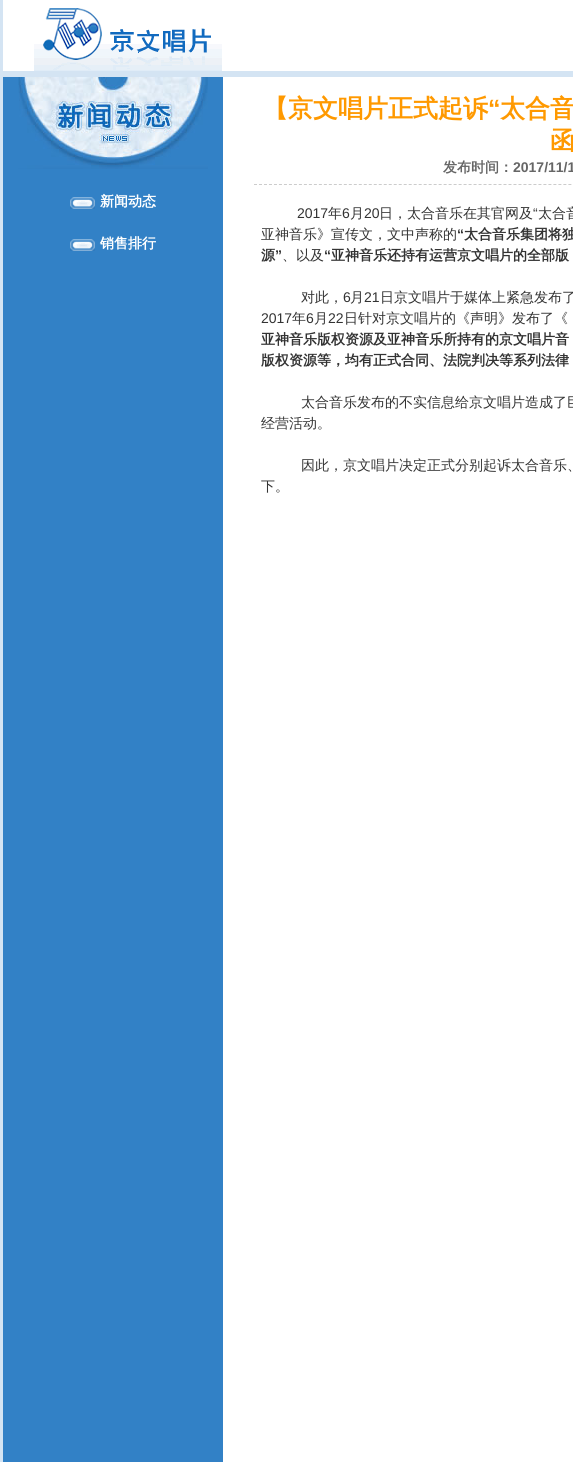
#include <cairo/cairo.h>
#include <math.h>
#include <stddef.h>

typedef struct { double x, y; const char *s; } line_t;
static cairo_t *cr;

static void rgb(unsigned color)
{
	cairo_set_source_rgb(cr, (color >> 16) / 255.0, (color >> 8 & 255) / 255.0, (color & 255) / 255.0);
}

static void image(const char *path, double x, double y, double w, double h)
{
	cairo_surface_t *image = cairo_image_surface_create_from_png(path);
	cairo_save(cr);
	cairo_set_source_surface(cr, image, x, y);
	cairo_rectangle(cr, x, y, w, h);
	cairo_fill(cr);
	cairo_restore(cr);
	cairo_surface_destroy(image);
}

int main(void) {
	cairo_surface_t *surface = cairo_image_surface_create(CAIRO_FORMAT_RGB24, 573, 1462);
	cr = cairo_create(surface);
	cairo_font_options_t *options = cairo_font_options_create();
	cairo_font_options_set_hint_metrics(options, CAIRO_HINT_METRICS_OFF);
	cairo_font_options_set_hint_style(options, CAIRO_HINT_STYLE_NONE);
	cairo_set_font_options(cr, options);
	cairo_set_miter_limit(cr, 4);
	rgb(0xffffff);
	cairo_paint(cr);
	rgb(0xd4e4f3);
	cairo_rectangle(cr, 0, 0, 3, 1462);
	cairo_fill(cr);
	cairo_rectangle(cr, 3, 71, 570, 6);
	cairo_fill(cr);
	image("img/1.png", 34, 8, 188, 63);
	rgb(0x3281c6);
	cairo_rectangle(cr, 3, 77, 220, 1385);
	cairo_fill(cr);
	image("img/2.png", 18, 77, 190, 92);
	image("img/3.png", 70, 197, 25, 12);
	image("img/3.png", 70, 239, 25, 12);
	cairo_new_path(cr);
	cairo_move_to(cr, 254, 184.5);
	cairo_line_to(cr, 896, 184.5);
	rgb(0xcccccc);
	cairo_set_line_width(cr, 1);
	cairo_set_dash(cr, (double[]){3, 1.99}, 2, 0);
	cairo_stroke(cr);
	cairo_select_font_face(cr, "WenQuanYi Zen Hei", CAIRO_FONT_SLANT_NORMAL, CAIRO_FONT_WEIGHT_BOLD);
	cairo_set_font_size(cr, 14);
	rgb(0xffffff);
	cairo_move_to(cr, 100, 206);
	cairo_show_text(cr, "新闻动态");
	cairo_move_to(cr, 100, 248);
	cairo_show_text(cr, "销售排行");
	cairo_set_font_size(cr, 25);
	rgb(0xff9900);
	cairo_move_to(cr, 263, 117);
	cairo_show_text(cr, "【京文唱片正式起诉");
	cairo_select_font_face(cr, "Liberation Sans", CAIRO_FONT_SLANT_NORMAL, CAIRO_FONT_WEIGHT_BOLD);
	cairo_move_to(cr, 488, 117);
	cairo_show_text(cr, "“");
	cairo_select_font_face(cr, "WenQuanYi Zen Hei", CAIRO_FONT_SLANT_NORMAL, CAIRO_FONT_WEIGHT_BOLD);
	cairo_move_to(cr, 500, 117);
	cairo_show_text(cr, "太合音");
	cairo_move_to(cr, 550, 149);
	cairo_show_text(cr, "函");
	cairo_set_font_size(cr, 14);
	rgb(0x666666);
	cairo_move_to(cr, 443, 172);
	cairo_show_text(cr, "发布时间：");
	cairo_select_font_face(cr, "Liberation Sans", CAIRO_FONT_SLANT_NORMAL, CAIRO_FONT_WEIGHT_BOLD);
	cairo_move_to(cr, 513, 172);
	cairo_show_text(cr, "2017/11/1");
	cairo_select_font_face(cr, "Liberation Sans", CAIRO_FONT_SLANT_NORMAL, CAIRO_FONT_WEIGHT_NORMAL);
	rgb(0x333333);
	cairo_move_to(cr, 297, 218);
	cairo_show_text(cr, "2017");
	cairo_select_font_face(cr, "WenQuanYi Zen Hei Medium", CAIRO_FONT_SLANT_NORMAL, CAIRO_FONT_WEIGHT_NORMAL);
	cairo_move_to(cr, 328, 218);
	cairo_show_text(cr, "年");
	cairo_select_font_face(cr, "Liberation Sans", CAIRO_FONT_SLANT_NORMAL, CAIRO_FONT_WEIGHT_NORMAL);
	cairo_move_to(cr, 342, 218);
	cairo_show_text(cr, "6");
	cairo_select_font_face(cr, "WenQuanYi Zen Hei Medium", CAIRO_FONT_SLANT_NORMAL, CAIRO_FONT_WEIGHT_NORMAL);
	cairo_move_to(cr, 350, 218);
	cairo_show_text(cr, "月");
	cairo_select_font_face(cr, "Liberation Sans", CAIRO_FONT_SLANT_NORMAL, CAIRO_FONT_WEIGHT_NORMAL);
	cairo_move_to(cr, 364, 218);
	cairo_show_text(cr, "20");
	cairo_select_font_face(cr, "WenQuanYi Zen Hei Medium", CAIRO_FONT_SLANT_NORMAL, CAIRO_FONT_WEIGHT_NORMAL);
	cairo_move_to(cr, 379, 218);
	cairo_show_text(cr, "日，太合音乐在其官网及");
	cairo_select_font_face(cr, "Liberation Sans", CAIRO_FONT_SLANT_NORMAL, CAIRO_FONT_WEIGHT_NORMAL);
	cairo_move_to(cr, 533, 218);
	cairo_show_text(cr, "“");
	cairo_select_font_face(cr, "WenQuanYi Zen Hei Medium", CAIRO_FONT_SLANT_NORMAL, CAIRO_FONT_WEIGHT_NORMAL);
	cairo_move_to(cr, 538, 218);
	cairo_show_text(cr, "太合音");
	cairo_move_to(cr, 261, 239);
	cairo_show_text(cr, "亚神音乐》宣传文，文中声称的");
	cairo_select_font_face(cr, "Liberation Sans", CAIRO_FONT_SLANT_NORMAL, CAIRO_FONT_WEIGHT_BOLD);
	cairo_move_to(cr, 457, 239);
	cairo_show_text(cr, "“");
	cairo_select_font_face(cr, "WenQuanYi Zen Hei", CAIRO_FONT_SLANT_NORMAL, CAIRO_FONT_WEIGHT_BOLD);
	cairo_move_to(cr, 464, 239);
	cairo_show_text(cr, "太合音乐集团将独");
	cairo_move_to(cr, 261, 260);
	cairo_show_text(cr, "源");
	cairo_select_font_face(cr, "Liberation Sans", CAIRO_FONT_SLANT_NORMAL, CAIRO_FONT_WEIGHT_BOLD);
	cairo_move_to(cr, 275, 260);
	cairo_show_text(cr, "”");
	cairo_select_font_face(cr, "WenQuanYi Zen Hei Medium", CAIRO_FONT_SLANT_NORMAL, CAIRO_FONT_WEIGHT_NORMAL);
	cairo_move_to(cr, 282, 260);
	cairo_show_text(cr, "、以及");
	cairo_select_font_face(cr, "Liberation Sans", CAIRO_FONT_SLANT_NORMAL, CAIRO_FONT_WEIGHT_BOLD);
	cairo_move_to(cr, 324, 260);
	cairo_show_text(cr, "“");
	cairo_select_font_face(cr, "WenQuanYi Zen Hei", CAIRO_FONT_SLANT_NORMAL, CAIRO_FONT_WEIGHT_BOLD);
	cairo_move_to(cr, 331, 260);
	cairo_show_text(cr, "亚神音乐还持有运营京文唱片的全部版");
	cairo_select_font_face(cr, "WenQuanYi Zen Hei Medium", CAIRO_FONT_SLANT_NORMAL, CAIRO_FONT_WEIGHT_NORMAL);
	cairo_move_to(cr, 301, 302);
	cairo_show_text(cr, "对此，");
	cairo_select_font_face(cr, "Liberation Sans", CAIRO_FONT_SLANT_NORMAL, CAIRO_FONT_WEIGHT_NORMAL);
	cairo_move_to(cr, 343, 302);
	cairo_show_text(cr, "6");
	cairo_select_font_face(cr, "WenQuanYi Zen Hei Medium", CAIRO_FONT_SLANT_NORMAL, CAIRO_FONT_WEIGHT_NORMAL);
	cairo_move_to(cr, 350, 302);
	cairo_show_text(cr, "月");
	cairo_select_font_face(cr, "Liberation Sans", CAIRO_FONT_SLANT_NORMAL, CAIRO_FONT_WEIGHT_NORMAL);
	cairo_move_to(cr, 364, 302);
	cairo_show_text(cr, "21");
	cairo_select_font_face(cr, "WenQuanYi Zen Hei Medium", CAIRO_FONT_SLANT_NORMAL, CAIRO_FONT_WEIGHT_NORMAL);
	cairo_move_to(cr, 380, 302);
	cairo_show_text(cr, "日京文唱片于媒体上紧急发布了");
	cairo_select_font_face(cr, "Liberation Sans", CAIRO_FONT_SLANT_NORMAL, CAIRO_FONT_WEIGHT_NORMAL);
	cairo_move_to(cr, 261, 323);
	cairo_show_text(cr, "2017");
	cairo_select_font_face(cr, "WenQuanYi Zen Hei Medium", CAIRO_FONT_SLANT_NORMAL, CAIRO_FONT_WEIGHT_NORMAL);
	cairo_move_to(cr, 292, 323);
	cairo_show_text(cr, "年");
	cairo_select_font_face(cr, "Liberation Sans", CAIRO_FONT_SLANT_NORMAL, CAIRO_FONT_WEIGHT_NORMAL);
	cairo_move_to(cr, 306, 323);
	cairo_show_text(cr, "6");
	cairo_select_font_face(cr, "WenQuanYi Zen Hei Medium", CAIRO_FONT_SLANT_NORMAL, CAIRO_FONT_WEIGHT_NORMAL);
	cairo_move_to(cr, 314, 323);
	cairo_show_text(cr, "月");
	cairo_select_font_face(cr, "Liberation Sans", CAIRO_FONT_SLANT_NORMAL, CAIRO_FONT_WEIGHT_NORMAL);
	cairo_move_to(cr, 328, 323);
	cairo_show_text(cr, "22");
	cairo_select_font_face(cr, "WenQuanYi Zen Hei Medium", CAIRO_FONT_SLANT_NORMAL, CAIRO_FONT_WEIGHT_NORMAL);
	cairo_move_to(cr, 344, 323);
	cairo_show_text(cr, "日针对京文唱片的《声明》发布了《");
	cairo_select_font_face(cr, "WenQuanYi Zen Hei", CAIRO_FONT_SLANT_NORMAL, CAIRO_FONT_WEIGHT_BOLD);
	cairo_move_to(cr, 261, 344);
	cairo_show_text(cr, "亚神音乐版权资源及亚神音乐所持有的京文唱片音");
	cairo_move_to(cr, 261, 365);
	cairo_show_text(cr, "版权资源等，均有正式合同、法院判决等系列法律");
	cairo_select_font_face(cr, "WenQuanYi Zen Hei Medium", CAIRO_FONT_SLANT_NORMAL, CAIRO_FONT_WEIGHT_NORMAL);
	{
		static const line_t items[] = {
			{301, 407, "太合音乐发布的不实信息给京文唱片造成了巨"},
			{261, 428, "经营活动。"},
			{301, 470, "因此，京文唱片决定正式分别起诉太合音乐、"},
			{261, 491, "下。"},
		};
		for (size_t i = 0; i < sizeof items / sizeof *items; i++) {
			cairo_move_to(cr, items[i].x, items[i].y);
			cairo_show_text(cr, items[i].s);
		}
	}
	cairo_surface_write_to_png(surface, "page.png");
	cairo_font_options_destroy(options);
	cairo_destroy(cr);
	cairo_surface_destroy(surface);
	return 0;
}
